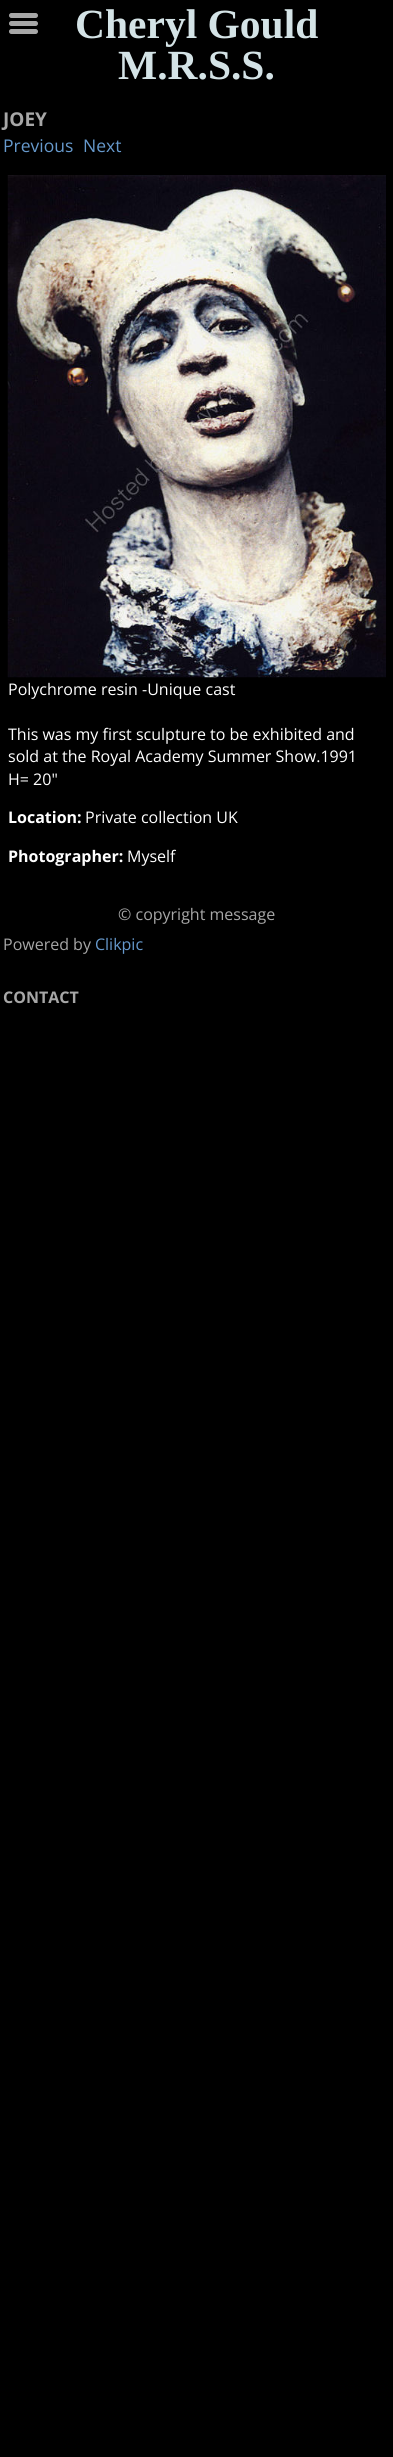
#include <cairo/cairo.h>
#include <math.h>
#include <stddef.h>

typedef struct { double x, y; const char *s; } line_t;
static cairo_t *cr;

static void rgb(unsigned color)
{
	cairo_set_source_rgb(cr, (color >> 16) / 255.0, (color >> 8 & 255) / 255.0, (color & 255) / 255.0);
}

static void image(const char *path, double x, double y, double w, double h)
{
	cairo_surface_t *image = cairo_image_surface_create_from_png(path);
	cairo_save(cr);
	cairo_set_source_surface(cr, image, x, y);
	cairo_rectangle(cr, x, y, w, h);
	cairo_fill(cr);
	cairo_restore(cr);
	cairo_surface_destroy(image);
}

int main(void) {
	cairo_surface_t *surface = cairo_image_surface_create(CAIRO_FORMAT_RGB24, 393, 2457);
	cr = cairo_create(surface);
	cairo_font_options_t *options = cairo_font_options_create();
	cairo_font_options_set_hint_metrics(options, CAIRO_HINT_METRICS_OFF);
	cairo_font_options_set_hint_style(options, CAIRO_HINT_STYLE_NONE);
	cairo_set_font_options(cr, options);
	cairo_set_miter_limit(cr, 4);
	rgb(0x000000);
	cairo_paint(cr);
	image("img/1.png", 9, 13, 29, 21);
	image("img/2.png", 7, 175, 379, 503);
	cairo_select_font_face(cr, "Liberation Serif", CAIRO_FONT_SLANT_NORMAL, CAIRO_FONT_WEIGHT_BOLD);
	cairo_set_font_size(cr, 41.5);
	rgb(0xd4e3e6);
	cairo_move_to(cr, 75, 38);
	cairo_show_text(cr, "Cheryl Gould");
	cairo_move_to(cr, 118, 79);
	cairo_show_text(cr, "M.R.S.S.");
	cairo_select_font_face(cr, "Open Sans", CAIRO_FONT_SLANT_NORMAL, CAIRO_FONT_WEIGHT_BOLD);
	cairo_set_font_size(cr, 19);
	rgb(0xa7a7a7);
	cairo_move_to(cr, 3, 126);
	cairo_show_text(cr, "JOEY");
	cairo_select_font_face(cr, "Open Sans", CAIRO_FONT_SLANT_NORMAL, CAIRO_FONT_WEIGHT_NORMAL);
	cairo_set_font_size(cr, 17.5);
	rgb(0x6699cc);
	cairo_move_to(cr, 3, 152);
	cairo_show_text(cr, "Previous");
	cairo_move_to(cr, 83, 152);
	cairo_show_text(cr, "Next");
	cairo_set_font_size(cr, 16);
	rgb(0xffffff);
	{
		static const line_t items[] = {
			{8, 695, "Polychrome resin -Unique cast"},
			{8, 740, "This was my first sculpture to be exhibited and"},
			{8, 762, "sold at the Royal Academy Summer Show.1991"},
			{8, 785, "H= 20\""},
		};
		for (size_t i = 0; i < sizeof items / sizeof *items; i++) {
			cairo_move_to(cr, items[i].x, items[i].y);
			cairo_show_text(cr, items[i].s);
		}
	}
	cairo_select_font_face(cr, "Open Sans", CAIRO_FONT_SLANT_NORMAL, CAIRO_FONT_WEIGHT_BOLD);
	cairo_move_to(cr, 8, 823);
	cairo_show_text(cr, "Location:");
	cairo_select_font_face(cr, "Open Sans", CAIRO_FONT_SLANT_NORMAL, CAIRO_FONT_WEIGHT_NORMAL);
	cairo_move_to(cr, 85, 823);
	cairo_show_text(cr, "Private collection UK");
	cairo_select_font_face(cr, "Open Sans", CAIRO_FONT_SLANT_NORMAL, CAIRO_FONT_WEIGHT_BOLD);
	cairo_move_to(cr, 8, 862);
	cairo_show_text(cr, "Photographer:");
	cairo_select_font_face(cr, "Open Sans", CAIRO_FONT_SLANT_NORMAL, CAIRO_FONT_WEIGHT_NORMAL);
	cairo_move_to(cr, 127, 862);
	cairo_show_text(cr, "Myself");
	rgb(0xa7a7a7);
	cairo_move_to(cr, 118, 920);
	cairo_show_text(cr, "© copyright message");
	cairo_move_to(cr, 3, 950);
	cairo_show_text(cr, "Powered by");
	rgb(0x6699cc);
	cairo_move_to(cr, 95, 950);
	cairo_show_text(cr, "Clikpic");
	cairo_select_font_face(cr, "Open Sans", CAIRO_FONT_SLANT_NORMAL, CAIRO_FONT_WEIGHT_BOLD);
	rgb(0xa7a7a7);
	cairo_move_to(cr, 3, 1003);
	cairo_show_text(cr, "CONTACT");
	cairo_surface_write_to_png(surface, "page.png");
	cairo_font_options_destroy(options);
	cairo_destroy(cr);
	cairo_surface_destroy(surface);
	return 0;
}
